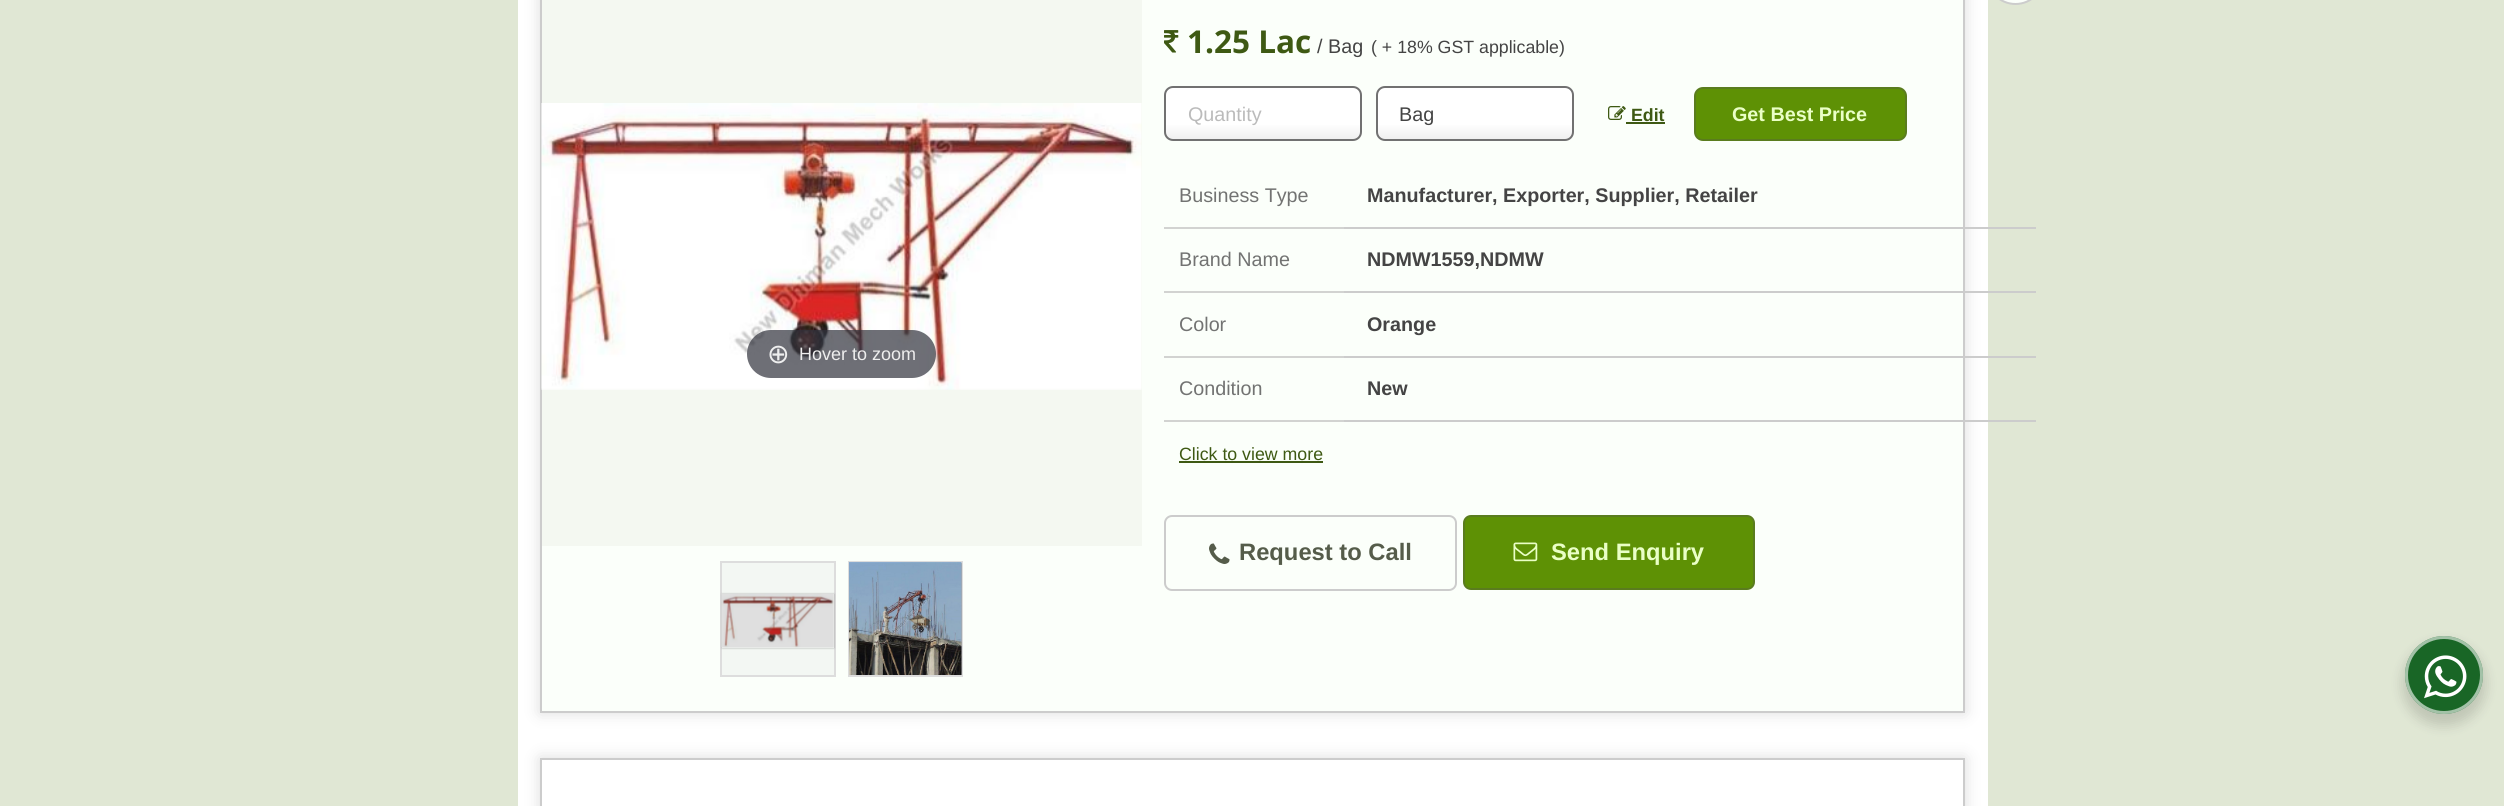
#include <cairo/cairo.h>
#include <math.h>
#include <stddef.h>

static cairo_t *cr;

static void rgb(unsigned color)
{
	cairo_set_source_rgb(cr, (color >> 16) / 255.0, (color >> 8 & 255) / 255.0, (color & 255) / 255.0);
}

static void rrect(double x, double y, double w, double h, double r)
{
	cairo_new_sub_path(cr);
	cairo_arc(cr, x + w - r, y + h - r, r, 0, M_PI / 2);
	cairo_arc(cr, x + r, y + h - r, r, M_PI / 2, M_PI);
	cairo_arc(cr, x + r, y + r, r, M_PI, 1.5 * M_PI);
	cairo_arc(cr, x + w - r, y + r, r, 1.5 * M_PI, 2 * M_PI);
	cairo_close_path(cr);
}

static void soft_shadow(double x, double y, double w, double h, double r, double blur, double alpha)
{
	cairo_push_group_with_content(cr, CAIRO_CONTENT_ALPHA);
	cairo_set_operator(cr, CAIRO_OPERATOR_SOURCE);
	for (int i = 15; i >= -15 && fmin(w, h) + blur * i / 3 > 0; i -= 2) {
		double e = blur * i / 6;
		cairo_set_source_rgba(cr, 0, 0, 0, alpha * erfc((i - 1) / 8.5) / 2);
		rrect(x - e, y - e, w + 2 * e, h + 2 * e, fmax(0, fmin(r + e + blur * .6, fmin(w, h) / 2 + e)));
		cairo_fill(cr);
	}
	cairo_pattern_t *soft = cairo_pop_group(cr);
	cairo_mask(cr, soft);
	cairo_pattern_destroy(soft);
}

static void image(const char *path, double x, double y, double w, double h)
{
	cairo_surface_t *image = cairo_image_surface_create_from_png(path);
	cairo_save(cr);
	cairo_set_source_surface(cr, image, x, y);
	cairo_rectangle(cr, x, y, w, h);
	cairo_fill(cr);
	cairo_restore(cr);
	cairo_surface_destroy(image);
}

int main(void) {
	cairo_surface_t *surface = cairo_image_surface_create(CAIRO_FORMAT_RGB24, 2504, 806);
	cr = cairo_create(surface);
	cairo_font_options_t *options = cairo_font_options_create();
	cairo_font_options_set_hint_metrics(options, CAIRO_HINT_METRICS_OFF);
	cairo_font_options_set_hint_style(options, CAIRO_HINT_STYLE_NONE);
	cairo_set_font_options(cr, options);
	cairo_set_miter_limit(cr, 4);
	cairo_pattern_t *gradient;
	rgb(0xe0e7d4);
	cairo_paint(cr);
	rgb(0xffffff);
	cairo_rectangle(cr, 518, 0, 1470, 806);
	cairo_fill(cr);
	rgb(0xcccccc);
	soft_shadow(540, -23, 1425, 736, 0, 7.5, 0.67);
	rgb(0xfbfffa);
	cairo_rectangle(cr, 542, 0, 1421, 711);
	cairo_fill(cr);
	rgb(0xf3f7f3);
	cairo_rectangle(cr, 722, 563, 112, 112);
	cairo_fill(cr);
	cairo_rectangle(cr, 541, -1, 1423, 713);
	rgb(0xcccccc);
	cairo_stroke(cr);
	rgb(0xf4f8f1);
	cairo_rectangle(cr, 542, 0, 600, 546);
	cairo_fill(cr);
	image("img/1.png", 541, 103, 601, 287);
	cairo_set_source_rgba(cr, 0.192, 0.2, 0.239, 0.7);
	rrect(747, 330, 189, 48, 24);
	cairo_fill(cr);
	cairo_rectangle(cr, 721, 562, 114, 114);
	rgb(0xdddddd);
	cairo_stroke(cr);
	cairo_save(cr);
	cairo_set_fill_rule(cr, CAIRO_FILL_RULE_EVEN_ODD);
	cairo_new_path(cr);
	cairo_move_to(cr, 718, 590);
	cairo_line_to(cr, 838, 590);
	cairo_line_to(cr, 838, 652);
	cairo_line_to(cr, 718, 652);
	cairo_close_path(cr);
	cairo_move_to(cr, 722, 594);
	cairo_line_to(cr, 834, 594);
	cairo_line_to(cr, 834, 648);
	cairo_line_to(cr, 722, 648);
	cairo_close_path(cr);
	cairo_clip(cr);
	rgb(0x000000);
	soft_shadow(722, 594, 112, 54, 0, 1, 0.3);
	cairo_restore(cr);
	image("img/2.png", 721, 593, 113, 55);
	cairo_rectangle(cr, 849, 562, 113, 114);
	cairo_stroke(cr);
	cairo_save(cr);
	cairo_rectangle(cr, 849, 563, 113, 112);
	cairo_clip(cr);
	rgb(0x000000);
	soft_shadow(849, 563, 113, 117, 0, 1, 0.3);
	cairo_restore(cr);
	image("img/3.png", 849, 562, 113, 113);
	cairo_set_source_rgba(cr, 0, 0, 0, 0.03);
	cairo_rectangle(cr, 849, 563, 113, 112);
	cairo_fill(cr);
	rgb(0xfbfffa);
	rrect(1987, -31, 57, 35, 28.5);
	cairo_fill_preserve(cr);
	rgb(0xcccccc);
	cairo_stroke(cr);
	image("img/4.png", 1164, 30, 15, 23);
	cairo_save(cr);
	rrect(1164, 86, 198, 55, 9);
	cairo_clip(cr);
	gradient = cairo_pattern_create_linear(1263, 87, 1263, 140);
	cairo_pattern_add_color_stop_rgba(gradient, 0.7, 1, 1, 1, 1);
	cairo_pattern_add_color_stop_rgba(gradient, 1, 0.933, 0.933, 0.933, 1);
	cairo_set_source(cr, gradient);
	cairo_pattern_destroy(gradient);
	cairo_rectangle(cr, 1164, 87, 198, 53);
	cairo_fill(cr);
	cairo_restore(cr);
	rrect(1165, 87, 196, 53, 8);
	rgb(0x717171);
	cairo_stroke(cr);
	cairo_save(cr);
	rrect(1376, 86, 198, 55, 9);
	cairo_clip(cr);
	gradient = cairo_pattern_create_linear(1475, 87, 1475, 140);
	cairo_pattern_add_color_stop_rgba(gradient, 0.7, 1, 1, 1, 1);
	cairo_pattern_add_color_stop_rgba(gradient, 1, 0.933, 0.933, 0.933, 1);
	cairo_set_source(cr, gradient);
	cairo_pattern_destroy(gradient);
	cairo_rectangle(cr, 1376, 87, 198, 53);
	cairo_fill(cr);
	cairo_restore(cr);
	rrect(1377, 87, 196, 53, 8);
	cairo_stroke(cr);
	image("img/5.png", 1608, 106, 18, 14);
	rgb(0x3e5913);
	cairo_rectangle(cr, 1626, 122, 39, 2);
	cairo_fill(cr);
	rgb(0x5e9105);
	rrect(1695, 88, 211, 52, 8);
	cairo_fill_preserve(cr);
	rgb(0x5a7c1e);
	cairo_stroke(cr);
	rgb(0xcccccc);
	cairo_rectangle(cr, 1344, 227, 692, 2);
	cairo_fill(cr);
	cairo_set_source_rgba(cr, 0, 0, 0, 0.1);
	cairo_rectangle(cr, 1164, 227, 180, 2);
	cairo_fill(cr);
	cairo_set_source_rgba(cr, 0.8, 0.8, 0.8, 0.75);
	cairo_rectangle(cr, 1164, 227, 182, 2);
	cairo_fill(cr);
	rgb(0xcccccc);
	cairo_rectangle(cr, 1344, 291, 692, 2);
	cairo_fill(cr);
	cairo_set_source_rgba(cr, 0, 0, 0, 0.1);
	cairo_rectangle(cr, 1164, 291, 180, 2);
	cairo_fill(cr);
	cairo_set_source_rgba(cr, 0.8, 0.8, 0.8, 0.75);
	cairo_rectangle(cr, 1164, 291, 182, 2);
	cairo_fill(cr);
	rgb(0xcccccc);
	cairo_rectangle(cr, 1344, 356, 692, 2);
	cairo_fill(cr);
	cairo_set_source_rgba(cr, 0, 0, 0, 0.1);
	cairo_rectangle(cr, 1164, 356, 180, 2);
	cairo_fill(cr);
	cairo_set_source_rgba(cr, 0.8, 0.8, 0.8, 0.75);
	cairo_rectangle(cr, 1164, 356, 182, 2);
	cairo_fill(cr);
	rgb(0xcccccc);
	cairo_rectangle(cr, 1344, 420, 692, 2);
	cairo_fill(cr);
	cairo_set_source_rgba(cr, 0, 0, 0, 0.1);
	cairo_rectangle(cr, 1164, 420, 180, 2);
	cairo_fill(cr);
	cairo_set_source_rgba(cr, 0.8, 0.8, 0.8, 0.75);
	cairo_rectangle(cr, 1164, 420, 182, 2);
	cairo_fill(cr);
	rgb(0x3e5913);
	cairo_rectangle(cr, 1179, 461, 144, 2);
	cairo_fill(cr);
	rrect(1165, 516, 291, 74, 7);
	rgb(0xcccccc);
	cairo_stroke(cr);
	image("img/6.png", 1209, 543, 21, 21);
	rgb(0x5e9105);
	rrect(1464, 516, 290, 73, 7);
	cairo_fill_preserve(cr);
	rgb(0x5a7c1e);
	cairo_stroke(cr);
	image("img/7.png", 1513, 542, 25, 20);
	cairo_save(cr);
	cairo_set_fill_rule(cr, CAIRO_FILL_RULE_EVEN_ODD);
	cairo_new_path(cr);
	cairo_move_to(cr, 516, 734);
	cairo_line_to(cr, 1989, 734);
	cairo_line_to(cr, 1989, 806);
	cairo_line_to(cr, 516, 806);
	cairo_close_path(cr);
	cairo_move_to(cr, 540, 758);
	cairo_line_to(cr, 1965, 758);
	cairo_line_to(cr, 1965, 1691);
	cairo_line_to(cr, 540, 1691);
	cairo_close_path(cr);
	cairo_clip(cr);
	rgb(0xcccccc);
	soft_shadow(540, 758, 1425, 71, 0, 7.5, 0.67);
	cairo_restore(cr);
	cairo_rectangle(cr, 541, 759, 1423, 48);
	rgb(0xcccccc);
	cairo_stroke(cr);
	rgb(0x000000);
	soft_shadow(2402, 642, 84, 84, 42, 6, 0.14);
	rgb(0x196626);
	cairo_arc(cr, 2444, 675, 39, 0, 2 * M_PI);
	cairo_fill(cr);
	cairo_arc(cr, 2444, 675, 37.5, 0, 2 * M_PI);
	cairo_set_source_rgba(cr, 1, 1, 1, 0.6);
	cairo_set_line_width(cr, 3);
	cairo_stroke(cr);
	image("img/8.png", 2424, 655, 43, 44);
	cairo_select_font_face(cr, "DejaVu Sans", CAIRO_FONT_SLANT_NORMAL, CAIRO_FONT_WEIGHT_NORMAL);
	cairo_set_font_size(cr, 27);
	rgb(0xeeeeee);
	cairo_move_to(cr, 767, 363);
	cairo_show_text(cr, "⊕");
	cairo_select_font_face(cr, "Liberation Sans", CAIRO_FONT_SLANT_NORMAL, CAIRO_FONT_WEIGHT_NORMAL);
	cairo_set_font_size(cr, 18);
	cairo_move_to(cr, 799, 360);
	cairo_show_text(cr, "Hover to zoom");
	cairo_select_font_face(cr, "Open Sans", CAIRO_FONT_SLANT_NORMAL, CAIRO_FONT_WEIGHT_BOLD);
	cairo_set_font_size(cr, 31.5);
	rgb(0x3e5913);
	cairo_move_to(cr, 1187, 53);
	cairo_show_text(cr, "1.25 Lac");
	cairo_select_font_face(cr, "Liberation Sans", CAIRO_FONT_SLANT_NORMAL, CAIRO_FONT_WEIGHT_NORMAL);
	cairo_set_font_size(cr, 19.75);
	rgb(0x444444);
	cairo_move_to(cr, 1317, 53);
	cairo_show_text(cr, "/ Bag");
	cairo_set_font_size(cr, 17.75);
	cairo_move_to(cr, 1371, 53);
	cairo_show_text(cr, "( + 18% GST applicable)");
	cairo_set_font_size(cr, 19.75);
	rgb(0xbbbbbb);
	cairo_move_to(cr, 1188, 121);
	cairo_show_text(cr, "Quantity");
	rgb(0x444444);
	cairo_move_to(cr, 1399, 121);
	cairo_show_text(cr, "Bag");
	cairo_select_font_face(cr, "Liberation Sans", CAIRO_FONT_SLANT_NORMAL, CAIRO_FONT_WEIGHT_BOLD);
	cairo_set_font_size(cr, 17.75);
	rgb(0x3e5913);
	cairo_move_to(cr, 1631, 121);
	cairo_show_text(cr, "Edit");
	cairo_set_font_size(cr, 19.75);
	rgb(0xeaffc6);
	cairo_move_to(cr, 1732, 121);
	cairo_show_text(cr, "Get Best Price");
	cairo_select_font_face(cr, "Liberation Sans", CAIRO_FONT_SLANT_NORMAL, CAIRO_FONT_WEIGHT_NORMAL);
	rgb(0x727372);
	cairo_move_to(cr, 1179, 202);
	cairo_show_text(cr, "Business Type");
	cairo_select_font_face(cr, "Liberation Sans", CAIRO_FONT_SLANT_NORMAL, CAIRO_FONT_WEIGHT_BOLD);
	rgb(0x444444);
	cairo_move_to(cr, 1367, 202);
	cairo_show_text(cr, "Manufacturer, Exporter, Supplier, Retailer");
	cairo_select_font_face(cr, "Liberation Sans", CAIRO_FONT_SLANT_NORMAL, CAIRO_FONT_WEIGHT_NORMAL);
	rgb(0x727372);
	cairo_move_to(cr, 1179, 266);
	cairo_show_text(cr, "Brand Name");
	cairo_select_font_face(cr, "Liberation Sans", CAIRO_FONT_SLANT_NORMAL, CAIRO_FONT_WEIGHT_BOLD);
	rgb(0x444444);
	cairo_move_to(cr, 1367, 266);
	cairo_show_text(cr, "NDMW1559,NDMW");
	cairo_select_font_face(cr, "Liberation Sans", CAIRO_FONT_SLANT_NORMAL, CAIRO_FONT_WEIGHT_NORMAL);
	rgb(0x727372);
	cairo_move_to(cr, 1179, 331);
	cairo_show_text(cr, "Color");
	cairo_select_font_face(cr, "Liberation Sans", CAIRO_FONT_SLANT_NORMAL, CAIRO_FONT_WEIGHT_BOLD);
	rgb(0x444444);
	cairo_move_to(cr, 1367, 331);
	cairo_show_text(cr, "Orange");
	cairo_select_font_face(cr, "Liberation Sans", CAIRO_FONT_SLANT_NORMAL, CAIRO_FONT_WEIGHT_NORMAL);
	rgb(0x727372);
	cairo_move_to(cr, 1179, 395);
	cairo_show_text(cr, "Condition");
	cairo_select_font_face(cr, "Liberation Sans", CAIRO_FONT_SLANT_NORMAL, CAIRO_FONT_WEIGHT_BOLD);
	rgb(0x444444);
	cairo_move_to(cr, 1367, 395);
	cairo_show_text(cr, "New");
	cairo_select_font_face(cr, "Liberation Sans", CAIRO_FONT_SLANT_NORMAL, CAIRO_FONT_WEIGHT_NORMAL);
	cairo_set_font_size(cr, 17.75);
	rgb(0x3e5913);
	cairo_move_to(cr, 1179, 460);
	cairo_show_text(cr, "Click to view more");
	cairo_select_font_face(cr, "Liberation Sans", CAIRO_FONT_SLANT_NORMAL, CAIRO_FONT_WEIGHT_BOLD);
	cairo_set_font_size(cr, 23.75);
	rgb(0x555c4a);
	cairo_move_to(cr, 1239, 560);
	cairo_show_text(cr, "Request to Call");
	rgb(0xeaffc6);
	cairo_move_to(cr, 1551, 560);
	cairo_show_text(cr, "Send Enquiry");
	cairo_surface_write_to_png(surface, "page.png");
	cairo_font_options_destroy(options);
	cairo_destroy(cr);
	cairo_surface_destroy(surface);
	return 0;
}
